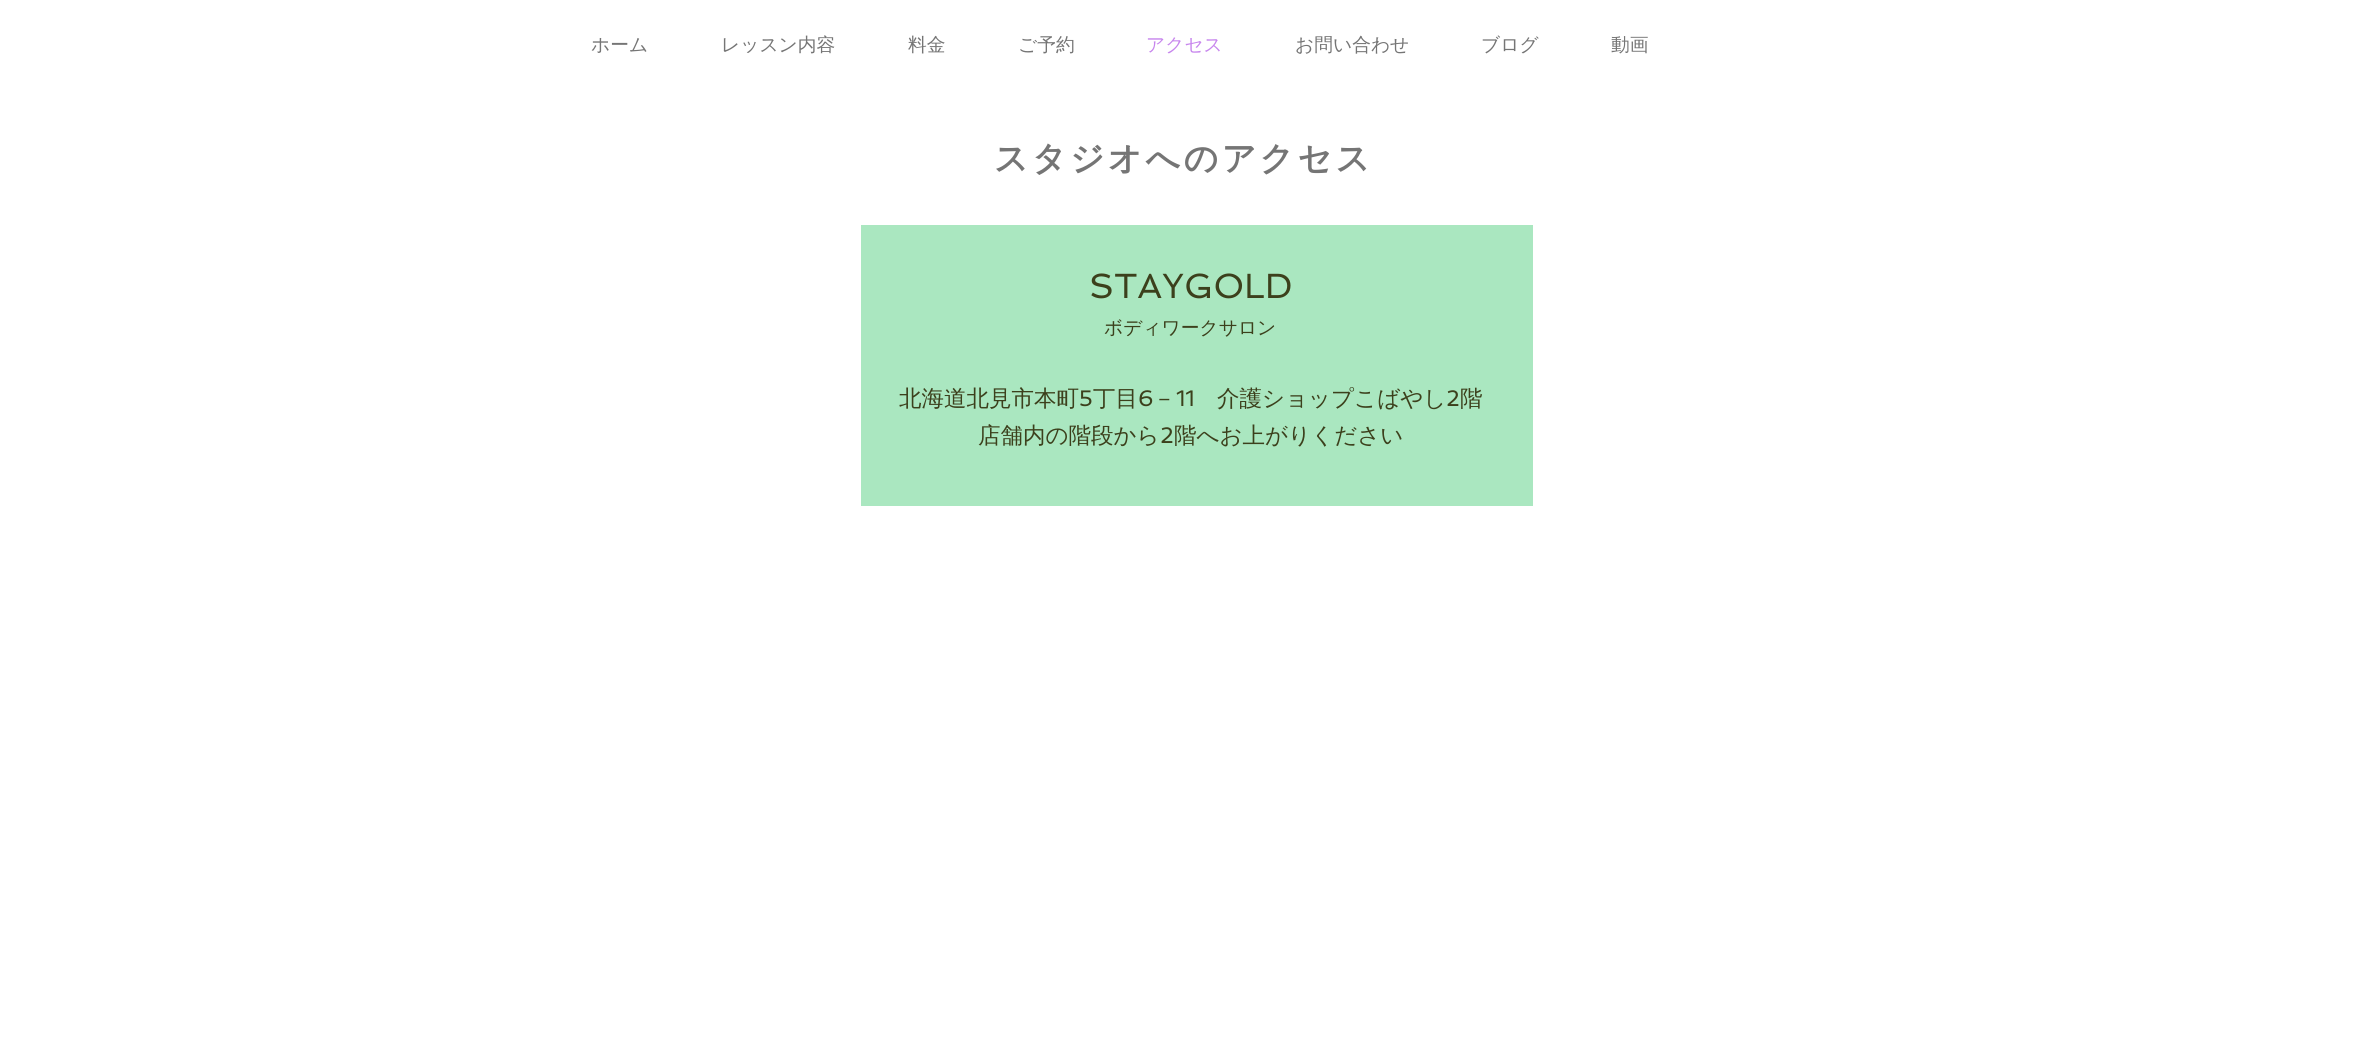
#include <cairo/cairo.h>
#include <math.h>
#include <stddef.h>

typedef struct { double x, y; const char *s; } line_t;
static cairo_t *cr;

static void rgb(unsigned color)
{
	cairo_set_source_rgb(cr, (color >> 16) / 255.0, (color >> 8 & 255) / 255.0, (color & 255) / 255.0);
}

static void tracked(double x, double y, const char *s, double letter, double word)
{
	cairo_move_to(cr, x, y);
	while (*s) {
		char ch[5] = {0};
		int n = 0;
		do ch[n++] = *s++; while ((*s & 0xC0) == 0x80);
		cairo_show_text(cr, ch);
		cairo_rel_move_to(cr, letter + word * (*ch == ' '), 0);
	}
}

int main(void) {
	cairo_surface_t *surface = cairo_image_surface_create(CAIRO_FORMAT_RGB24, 2367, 1055);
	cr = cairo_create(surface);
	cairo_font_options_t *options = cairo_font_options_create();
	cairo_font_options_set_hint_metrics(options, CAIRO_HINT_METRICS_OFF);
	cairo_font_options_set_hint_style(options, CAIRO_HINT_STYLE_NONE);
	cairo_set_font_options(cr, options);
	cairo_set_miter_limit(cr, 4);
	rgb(0xffffff);
	cairo_paint(cr);
	rgb(0xaae7c0);
	cairo_rectangle(cr, 861, 225, 672, 281);
	cairo_fill(cr);
	cairo_select_font_face(cr, "WenQuanYi Zen Hei Medium", CAIRO_FONT_SLANT_NORMAL, CAIRO_FONT_WEIGHT_NORMAL);
	cairo_set_font_size(cr, 18.75);
	rgb(0x757575);
	{
		static const line_t items[] = {
			{591, 51, "ホーム"},
			{721, 51, "レッスン内容"},
			{908, 51, "料金"},
			{1018, 51, "ご予約"},
		};
		for (size_t i = 0; i < sizeof items / sizeof *items; i++) {
			cairo_move_to(cr, items[i].x, items[i].y);
			cairo_show_text(cr, items[i].s);
		}
	}
	rgb(0xc786ed);
	cairo_move_to(cr, 1146, 51);
	cairo_show_text(cr, "アクセス");
	rgb(0x757575);
	{
		static const line_t items[] = {
			{1295, 51, "お問い合わせ"},
			{1481, 51, "ブログ"},
			{1611, 51, "動画"},
		};
		for (size_t i = 0; i < sizeof items / sizeof *items; i++) {
			cairo_move_to(cr, items[i].x, items[i].y);
			cairo_show_text(cr, items[i].s);
		}
	}
	cairo_select_font_face(cr, "WenQuanYi Zen Hei", CAIRO_FONT_SLANT_NORMAL, CAIRO_FONT_WEIGHT_BOLD);
	cairo_set_font_size(cr, 33.75);
	tracked(994, 170, "スタジオへのアクセス", 3.4, 0);
	cairo_select_font_face(cr, "Spinnaker", CAIRO_FONT_SLANT_NORMAL, CAIRO_FONT_WEIGHT_NORMAL);
	cairo_set_font_size(cr, 35);
	rgb(0x3c401c);
	cairo_move_to(cr, 1089, 298);
	cairo_show_text(cr, "STAYGOLD");
	cairo_select_font_face(cr, "WenQuanYi Zen Hei Medium", CAIRO_FONT_SLANT_NORMAL, CAIRO_FONT_WEIGHT_NORMAL);
	cairo_set_font_size(cr, 18.75);
	cairo_move_to(cr, 1104, 334);
	cairo_show_text(cr, "ボディワークサロン");
	cairo_set_font_size(cr, 22.5);
	cairo_move_to(cr, 899, 406);
	cairo_show_text(cr, "北海道北見市本町");
	cairo_select_font_face(cr, "Spinnaker", CAIRO_FONT_SLANT_NORMAL, CAIRO_FONT_WEIGHT_NORMAL);
	cairo_move_to(cr, 1079, 406);
	cairo_show_text(cr, "5");
	cairo_select_font_face(cr, "WenQuanYi Zen Hei Medium", CAIRO_FONT_SLANT_NORMAL, CAIRO_FONT_WEIGHT_NORMAL);
	cairo_move_to(cr, 1093, 406);
	cairo_show_text(cr, "丁目");
	cairo_select_font_face(cr, "Spinnaker", CAIRO_FONT_SLANT_NORMAL, CAIRO_FONT_WEIGHT_NORMAL);
	cairo_move_to(cr, 1138, 406);
	cairo_show_text(cr, "6");
	cairo_select_font_face(cr, "WenQuanYi Zen Hei Medium", CAIRO_FONT_SLANT_NORMAL, CAIRO_FONT_WEIGHT_NORMAL);
	cairo_move_to(cr, 1153, 406);
	cairo_show_text(cr, "－");
	cairo_select_font_face(cr, "Spinnaker", CAIRO_FONT_SLANT_NORMAL, CAIRO_FONT_WEIGHT_NORMAL);
	cairo_move_to(cr, 1176, 406);
	cairo_show_text(cr, "11");
	cairo_select_font_face(cr, "WenQuanYi Zen Hei Medium", CAIRO_FONT_SLANT_NORMAL, CAIRO_FONT_WEIGHT_NORMAL);
	cairo_move_to(cr, 1217, 406);
	cairo_show_text(cr, "介護ショップこばやし");
	cairo_select_font_face(cr, "Spinnaker", CAIRO_FONT_SLANT_NORMAL, CAIRO_FONT_WEIGHT_NORMAL);
	cairo_move_to(cr, 1446, 406);
	cairo_show_text(cr, "2");
	cairo_select_font_face(cr, "WenQuanYi Zen Hei Medium", CAIRO_FONT_SLANT_NORMAL, CAIRO_FONT_WEIGHT_NORMAL);
	cairo_move_to(cr, 1460, 406);
	cairo_show_text(cr, "階");
	cairo_move_to(cr, 978, 443);
	cairo_show_text(cr, "店舗内の階段から");
	cairo_select_font_face(cr, "Spinnaker", CAIRO_FONT_SLANT_NORMAL, CAIRO_FONT_WEIGHT_NORMAL);
	cairo_move_to(cr, 1160, 443);
	cairo_show_text(cr, "2");
	cairo_select_font_face(cr, "WenQuanYi Zen Hei Medium", CAIRO_FONT_SLANT_NORMAL, CAIRO_FONT_WEIGHT_NORMAL);
	cairo_move_to(cr, 1174, 443);
	cairo_show_text(cr, "階へお上がりください");
	cairo_surface_write_to_png(surface, "page.png");
	cairo_font_options_destroy(options);
	cairo_destroy(cr);
	cairo_surface_destroy(surface);
	return 0;
}
